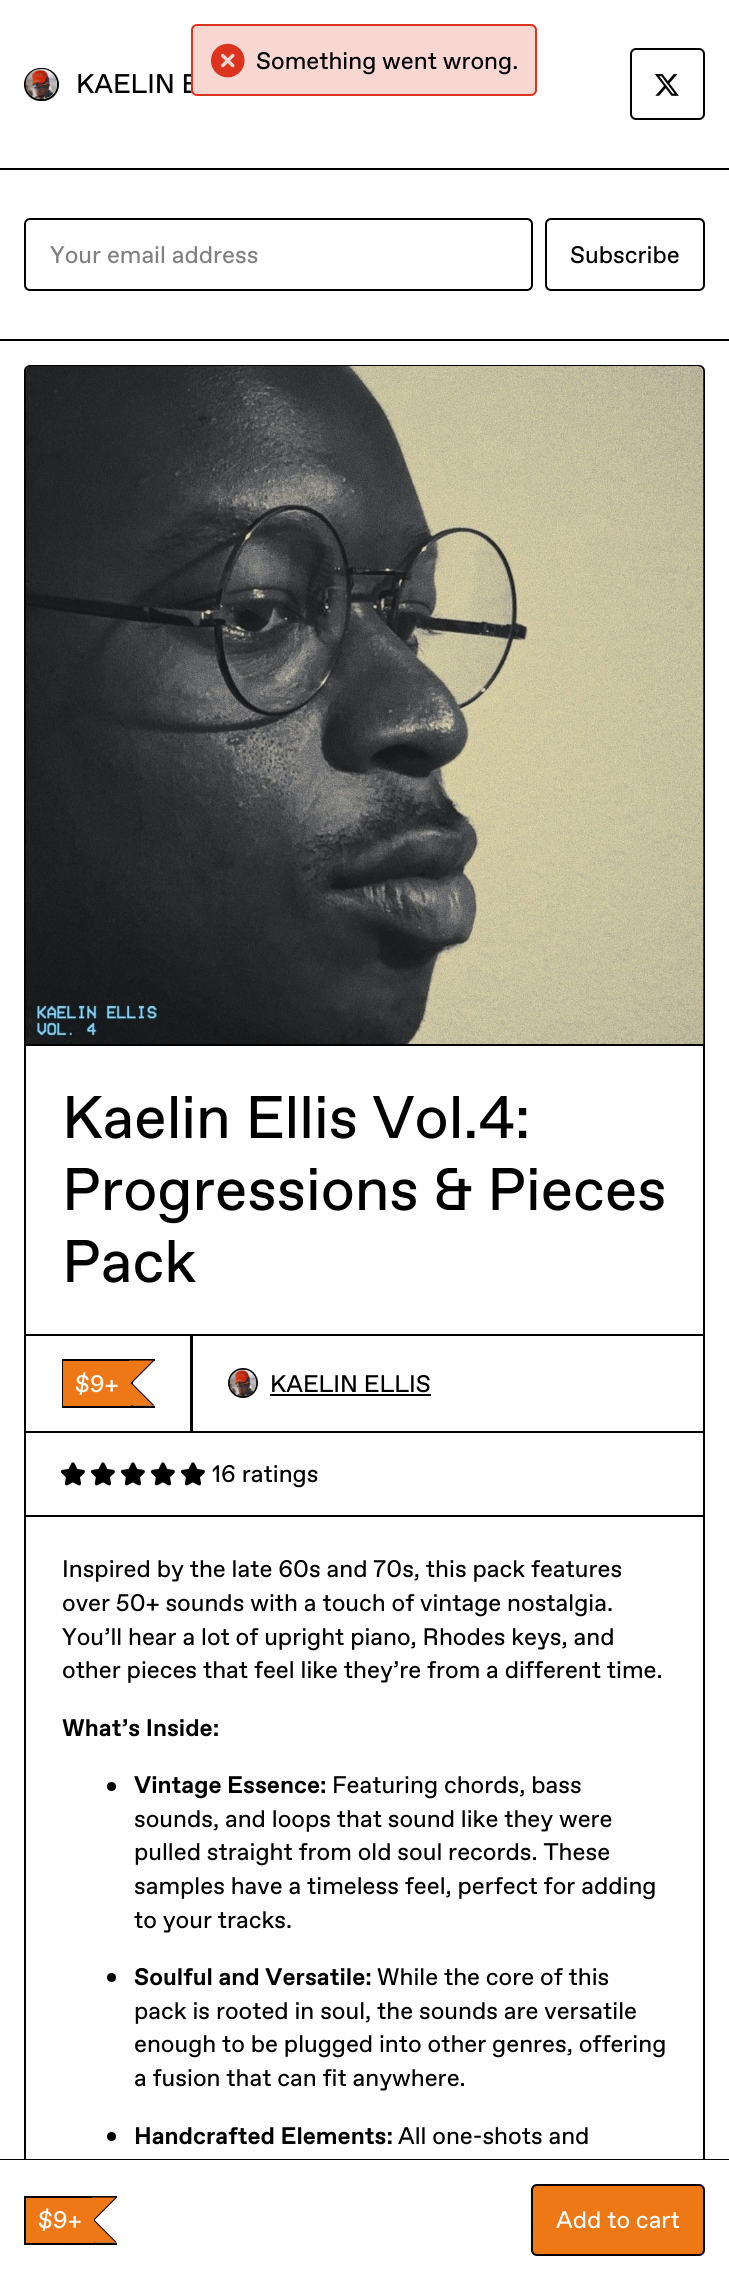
#include <cairo/cairo.h>
#include <math.h>
#include <stddef.h>

typedef struct { double x, y; const char *s; } line_t;
typedef struct { double x, y, w, h; unsigned color; } box_t;
static cairo_t *cr;

static void rgb(unsigned color)
{
	cairo_set_source_rgb(cr, (color >> 16) / 255.0, (color >> 8 & 255) / 255.0, (color & 255) / 255.0);
}

static void rrect(double x, double y, double w, double h, double r)
{
	cairo_new_sub_path(cr);
	cairo_arc(cr, x + w - r, y + h - r, r, 0, M_PI / 2);
	cairo_arc(cr, x + r, y + h - r, r, M_PI / 2, M_PI);
	cairo_arc(cr, x + r, y + r, r, M_PI, 1.5 * M_PI);
	cairo_arc(cr, x + w - r, y + r, r, 1.5 * M_PI, 2 * M_PI);
	cairo_close_path(cr);
}

static void image(const char *path, double x, double y, double w, double h)
{
	cairo_surface_t *image = cairo_image_surface_create_from_png(path);
	cairo_save(cr);
	cairo_set_source_surface(cr, image, x, y);
	cairo_rectangle(cr, x, y, w, h);
	cairo_fill(cr);
	cairo_restore(cr);
	cairo_surface_destroy(image);
}

int main(void) {
	cairo_surface_t *surface = cairo_image_surface_create(CAIRO_FORMAT_RGB24, 729, 2280);
	cr = cairo_create(surface);
	cairo_font_options_t *options = cairo_font_options_create();
	cairo_font_options_set_hint_metrics(options, CAIRO_HINT_METRICS_OFF);
	cairo_font_options_set_hint_style(options, CAIRO_HINT_STYLE_NONE);
	cairo_set_font_options(cr, options);
	cairo_set_miter_limit(cr, 4);
	rgb(0xffffff);
	cairo_paint(cr);
	rgb(0x000000);
	cairo_rectangle(cr, 0, 168, 729, 2);
	cairo_fill(cr);
	rrect(25, 69, 33, 31, 15.5);
	cairo_stroke(cr);
	image("img/2.png", 25, 69, 32, 30);
	rrect(631, 49, 73, 70, 5);
	cairo_stroke(cr);
	image("img/3.png", 655, 74, 24, 22);
	cairo_rectangle(cr, 0, 339, 729, 2);
	cairo_fill(cr);
	rrect(25, 219, 507, 71, 5);
	cairo_stroke(cr);
	rrect(546, 219, 158, 71, 5);
	cairo_stroke(cr);
	rrect(25, 366, 679, 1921, 5);
	cairo_stroke(cr);
	cairo_rectangle(cr, 26, 1044, 678, 2);
	cairo_fill(cr);
	image("img/4.png", 25, 366, 679, 678);
	cairo_rectangle(cr, 25, 1335, 166, 97);
	cairo_stroke(cr);
	{
		static const box_t items[] = {
			{62, 1359, 93, 2, 0x000000},
			{62, 1406, 93, 2, 0x000000},
			{62, 1359, 2, 48, 0x000000},
		};
		for (size_t i = 0; i < sizeof items / sizeof *items; i++) {
			rgb(items[i].color);
			cairo_rectangle(cr, items[i].x, items[i].y, items[i].w, items[i].h);
			cairo_fill(cr);
		}
	}
	cairo_new_path(cr);
	cairo_move_to(cr, 130.5, 1360.5);
	cairo_line_to(cr, 154.5, 1360.5);
	cairo_line_to(cr, 132, 1383);
	cairo_close_path(cr);
	cairo_move_to(cr, 154.5, 1405.5);
	cairo_line_to(cr, 130.5, 1405.5);
	cairo_line_to(cr, 132, 1383);
	cairo_close_path(cr);
	cairo_fill(cr);
	cairo_rectangle(cr, 131, 1380, 2, 26);
	cairo_fill(cr);
	rgb(0xee7815);
	cairo_new_path(cr);
	cairo_move_to(cr, 129, 1360.5);
	cairo_line_to(cr, 153, 1360.5);
	cairo_line_to(cr, 130.5, 1383);
	cairo_close_path(cr);
	cairo_move_to(cr, 153, 1405.5);
	cairo_line_to(cr, 129, 1405.5);
	cairo_line_to(cr, 130.5, 1383);
	cairo_close_path(cr);
	cairo_fill(cr);
	cairo_rectangle(cr, 129, 1361, 2, 45);
	cairo_fill(cr);
	cairo_rectangle(cr, 63, 1361, 66, 45);
	cairo_fill(cr);
	cairo_rectangle(cr, 192, 1335, 512, 97);
	rgb(0x000000);
	cairo_stroke(cr);
	cairo_arc(cr, 243, 1383, 14, 0, 2 * M_PI);
	cairo_stroke(cr);
	image("img/5.png", 229, 1369, 28, 28);
	cairo_rectangle(cr, 270, 1394, 161, 2);
	cairo_fill(cr);
	image("img/6.png", 60, 1462, 25, 24);
	image("img/6.png", 90, 1462, 25, 24);
	image("img/6.png", 120, 1462, 25, 24);
	image("img/6.png", 150, 1462, 25, 24);
	image("img/6.png", 180, 1462, 25, 24);
	cairo_rectangle(cr, 26, 1515, 678, 2);
	cairo_fill(cr);
	cairo_arc(cr, 111.5, 1786.5, 4.5, 0, 2 * M_PI);
	cairo_fill(cr);
	cairo_arc(cr, 111.5, 1977.5, 4.5, 0, 2 * M_PI);
	cairo_fill(cr);
	cairo_arc(cr, 111.5, 2136.5, 4.5, 0, 2 * M_PI);
	cairo_fill(cr);
	{
		static const box_t items[] = {
			{0, 2159, 729, 1, 0x000000},
			{24, 2160, 681, 120, 0xffffff},
			{24, 2196, 93, 2, 0x000000},
			{24, 2243, 93, 2, 0x000000},
			{24, 2196, 2, 48, 0x000000},
			{26, 2198, 66, 45, 0xee7815},
		};
		for (size_t i = 0; i < sizeof items / sizeof *items; i++) {
			rgb(items[i].color);
			cairo_rectangle(cr, items[i].x, items[i].y, items[i].w, items[i].h);
			cairo_fill(cr);
		}
	}
	rgb(0x000000);
	cairo_new_path(cr);
	cairo_move_to(cr, 93, 2197.5);
	cairo_line_to(cr, 117, 2197.5);
	cairo_line_to(cr, 94.5, 2220);
	cairo_close_path(cr);
	cairo_move_to(cr, 117, 2242.5);
	cairo_line_to(cr, 93, 2242.5);
	cairo_line_to(cr, 94.5, 2220);
	cairo_close_path(cr);
	cairo_fill(cr);
	cairo_rectangle(cr, 94, 2218, 1, 25);
	cairo_fill(cr);
	rgb(0xee7815);
	cairo_new_path(cr);
	cairo_move_to(cr, 91.5, 2197.5);
	cairo_line_to(cr, 115.5, 2197.5);
	cairo_line_to(cr, 93, 2220);
	cairo_close_path(cr);
	cairo_move_to(cr, 115.5, 2242.5);
	cairo_line_to(cr, 91.5, 2242.5);
	cairo_line_to(cr, 93, 2220);
	cairo_close_path(cr);
	cairo_fill(cr);
	cairo_rectangle(cr, 92, 2198, 2, 45);
	cairo_fill(cr);
	rrect(532, 2185, 172, 70, 5);
	cairo_fill_preserve(cr);
	rgb(0x000000);
	cairo_stroke(cr);
	cairo_select_font_face(cr, "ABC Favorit", CAIRO_FONT_SLANT_NORMAL, CAIRO_FONT_WEIGHT_NORMAL);
	cairo_set_font_size(cr, 27);
	cairo_move_to(cr, 76, 93);
	cairo_show_text(cr, "KAELIN E");
	rgb(0xffffff);
	rrect(191, 24, 346, 72, 6);
	cairo_fill(cr);
	cairo_set_source_rgba(cr, 0.863, 0.204, 0.118, 0.2);
	rrect(192, 25, 344, 70, 5);
	cairo_fill_preserve(cr);
	rgb(0xdc341e);
	cairo_stroke(cr);
	image("img/1.png", 210, 43, 35, 35);
	cairo_set_font_size(cr, 24);
	rgb(0x000000);
	cairo_move_to(cr, 256, 69);
	cairo_show_text(cr, "Something went wrong.");
	rgb(0x808080);
	cairo_move_to(cr, 50, 263);
	cairo_show_text(cr, "Your email address");
	rgb(0x000000);
	cairo_move_to(cr, 570, 263);
	cairo_show_text(cr, "Subscribe");
	cairo_set_font_size(cr, 60);
	{
		static const line_t items[] = {
			{62, 1138, "Kaelin Ellis Vol.4:"},
			{62, 1210, "Progressions & Pieces"},
			{62, 1282, "Pack"},
		};
		for (size_t i = 0; i < sizeof items / sizeof *items; i++) {
			cairo_move_to(cr, items[i].x, items[i].y);
			cairo_show_text(cr, items[i].s);
		}
	}
	cairo_set_font_size(cr, 24);
	rgb(0xffffff);
	cairo_move_to(cr, 75, 1392);
	cairo_show_text(cr, "$9+");
	rgb(0x000000);
	{
		static const line_t items[] = {
			{270, 1392, "KAELIN ELLIS"},
			{212, 1482, "16 ratings"},
			{62, 1577, "Inspired by the late 60s and 70s, this pack features"},
			{62, 1611, "over 50+ sounds with a touch of vintage nostalgia."},
			{62, 1645, "You’ll hear a lot of upright piano, Rhodes keys, and"},
			{62, 1678, "other pieces that feel like they’re from a different time."},
		};
		for (size_t i = 0; i < sizeof items / sizeof *items; i++) {
			cairo_move_to(cr, items[i].x, items[i].y);
			cairo_show_text(cr, items[i].s);
		}
	}
	cairo_select_font_face(cr, "ABC Favorit", CAIRO_FONT_SLANT_NORMAL, CAIRO_FONT_WEIGHT_BOLD);
	cairo_move_to(cr, 62, 1736);
	cairo_show_text(cr, "What’s Inside:");
	cairo_move_to(cr, 134, 1793);
	cairo_show_text(cr, "Vintage Essence:");
	cairo_select_font_face(cr, "ABC Favorit", CAIRO_FONT_SLANT_NORMAL, CAIRO_FONT_WEIGHT_NORMAL);
	{
		static const line_t items[] = {
			{332, 1793, "Featuring chords, bass"},
			{134, 1827, "sounds, and loops that sound like they were"},
			{134, 1860, "pulled straight from old soul records. These"},
			{134, 1894, "samples have a timeless feel, perfect for adding"},
			{134, 1928, "to your tracks."},
		};
		for (size_t i = 0; i < sizeof items / sizeof *items; i++) {
			cairo_move_to(cr, items[i].x, items[i].y);
			cairo_show_text(cr, items[i].s);
		}
	}
	cairo_select_font_face(cr, "ABC Favorit", CAIRO_FONT_SLANT_NORMAL, CAIRO_FONT_WEIGHT_BOLD);
	cairo_move_to(cr, 134, 1985);
	cairo_show_text(cr, "Soulful and Versatile:");
	cairo_select_font_face(cr, "ABC Favorit", CAIRO_FONT_SLANT_NORMAL, CAIRO_FONT_WEIGHT_NORMAL);
	{
		static const line_t items[] = {
			{377, 1985, "While the core of this"},
			{134, 2019, "pack is rooted in soul, the sounds are versatile"},
			{134, 2052, "enough to be plugged into other genres, offering"},
			{134, 2086, "a fusion that can fit anywhere."},
		};
		for (size_t i = 0; i < sizeof items / sizeof *items; i++) {
			cairo_move_to(cr, items[i].x, items[i].y);
			cairo_show_text(cr, items[i].s);
		}
	}
	cairo_select_font_face(cr, "ABC Favorit", CAIRO_FONT_SLANT_NORMAL, CAIRO_FONT_WEIGHT_BOLD);
	cairo_move_to(cr, 134, 2144);
	cairo_show_text(cr, "Handcrafted Elements:");
	cairo_select_font_face(cr, "ABC Favorit", CAIRO_FONT_SLANT_NORMAL, CAIRO_FONT_WEIGHT_NORMAL);
	cairo_move_to(cr, 398, 2144);
	cairo_show_text(cr, "All one-shots and");
	rgb(0xffffff);
	cairo_move_to(cr, 38, 2228);
	cairo_show_text(cr, "$9+");
	cairo_move_to(cr, 556, 2228);
	cairo_show_text(cr, "Add to cart");
	cairo_surface_write_to_png(surface, "page.png");
	cairo_font_options_destroy(options);
	cairo_destroy(cr);
	cairo_surface_destroy(surface);
	return 0;
}
